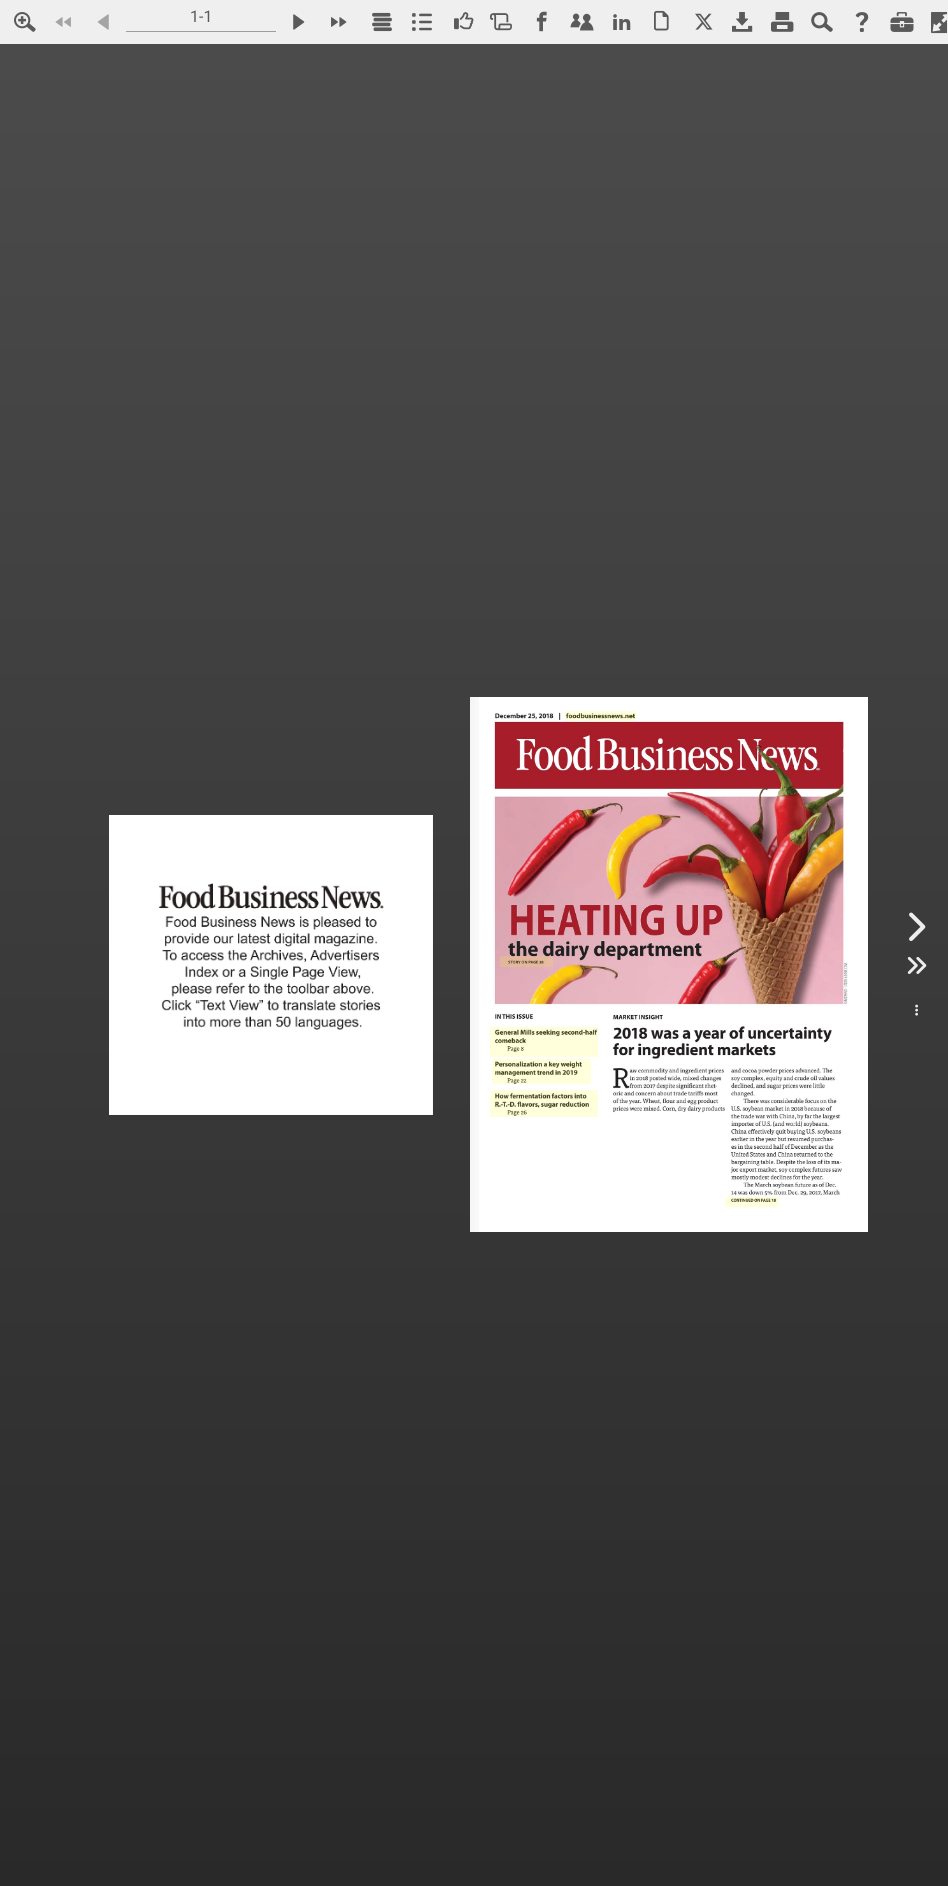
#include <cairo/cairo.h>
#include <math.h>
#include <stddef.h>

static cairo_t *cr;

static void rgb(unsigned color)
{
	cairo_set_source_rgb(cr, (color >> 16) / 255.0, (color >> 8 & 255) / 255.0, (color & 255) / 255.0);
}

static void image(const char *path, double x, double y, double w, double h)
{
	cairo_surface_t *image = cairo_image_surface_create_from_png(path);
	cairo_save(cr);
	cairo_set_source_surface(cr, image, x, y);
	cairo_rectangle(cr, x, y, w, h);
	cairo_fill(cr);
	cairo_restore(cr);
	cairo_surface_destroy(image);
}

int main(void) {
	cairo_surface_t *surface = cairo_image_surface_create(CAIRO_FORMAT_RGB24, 948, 1886);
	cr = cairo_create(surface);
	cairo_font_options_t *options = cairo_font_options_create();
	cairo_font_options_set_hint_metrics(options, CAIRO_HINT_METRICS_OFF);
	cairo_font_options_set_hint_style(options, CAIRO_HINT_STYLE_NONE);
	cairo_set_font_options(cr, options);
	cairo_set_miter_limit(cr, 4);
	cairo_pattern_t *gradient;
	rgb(0xffffff);
	cairo_paint(cr);
	gradient = cairo_pattern_create_linear(474, 0, 474, 1886);
	cairo_pattern_add_color_stop_rgba(gradient, 0, 0.298, 0.298, 0.298, 1);
	cairo_pattern_add_color_stop_rgba(gradient, 1, 0.161, 0.161, 0.161, 1);
	cairo_set_source(cr, gradient);
	cairo_pattern_destroy(gradient);
	cairo_rectangle(cr, 0, 44, 948, 1842);
	cairo_fill(cr);
	rgb(0xefefef);
	cairo_rectangle(cr, 0, 0, 948, 44);
	cairo_fill(cr);
	image("img/1.png", 14, 12, 22, 20);
	image("img/2.png", 55, 17, 16, 10);
	image("img/3.png", 97, 14, 12, 16);
	rgb(0x9e9e9e);
	cairo_rectangle(cr, 126, 31, 150, 1);
	cairo_fill(cr);
	image("img/4.png", 293, 14, 12, 16);
	image("img/5.png", 331, 17, 16, 10);
	image("img/6.png", 372, 12, 20, 20);
	image("img/7.png", 412, 13, 20, 18);
	image("img/8.png", 454, 12, 20, 18);
	image("img/9.png", 490, 13, 22, 18);
	image("img/10.png", 536, 11, 11, 21);
	image("img/11.png", 570, 13, 24, 18);
	image("img/12.png", 613, 14, 18, 16);
	image("img/13.png", 654, 10, 15, 21);
	image("img/14.png", 695, 13, 18, 17);
	image("img/15.png", 732, 12, 21, 20);
	image("img/16.png", 771, 12, 23, 20);
	image("img/17.png", 811, 12, 22, 20);
	image("img/18.png", 855, 12, 14, 20);
	image("img/19.png", 890, 12, 24, 20);
	image("img/20.png", 931, 12, 16, 22);
	image("img/21.png", 109, 815, 324, 300);
	image("img/22.png", 109, 815, 324, 300);
	rgb(0xffffff);
	cairo_rectangle(cr, 470, 697, 398, 535);
	cairo_fill(cr);
	gradient = cairo_pattern_create_linear(868, 965, 470, 965);
	cairo_pattern_add_color_stop_rgba(gradient, 0.95, 0, 0, 0, 0);
	cairo_pattern_add_color_stop_rgba(gradient, 1, 0, 0, 0, 0.04);
	cairo_set_source(cr, gradient);
	cairo_pattern_destroy(gradient);
	cairo_rectangle(cr, 470, 697, 9, 535);
	cairo_fill(cr);
	image("img/23.png", 493, 712, 355, 491);
	image("img/24.png", 494, 713, 354, 490);
	cairo_set_source_rgba(cr, 1, 1, 0, 0.14);
	cairo_rectangle(cr, 565, 711, 71, 10);
	cairo_fill(cr);
	cairo_rectangle(cr, 500, 956, 53, 11);
	cairo_fill(cr);
	cairo_rectangle(cr, 490, 1027, 108, 30);
	cairo_fill(cr);
	cairo_rectangle(cr, 492, 1059, 99, 25);
	cairo_fill(cr);
	cairo_rectangle(cr, 490, 1090, 108, 27);
	cairo_fill(cr);
	cairo_rectangle(cr, 725, 1197, 53, 10);
	cairo_fill(cr);
	image("img/25.png", 909, 912, 17, 29);
	image("img/26.png", 907, 956, 20, 18);
	image("img/27.png", 915, 1004, 3, 12);
	cairo_select_font_face(cr, "Roboto", CAIRO_FONT_SLANT_NORMAL, CAIRO_FONT_WEIGHT_NORMAL);
	cairo_set_font_size(cr, 16);
	rgb(0x5a5a5a);
	cairo_move_to(cr, 190, 22);
	cairo_show_text(cr, "1-1");
	cairo_surface_write_to_png(surface, "page.png");
	cairo_font_options_destroy(options);
	cairo_destroy(cr);
	cairo_surface_destroy(surface);
	return 0;
}
